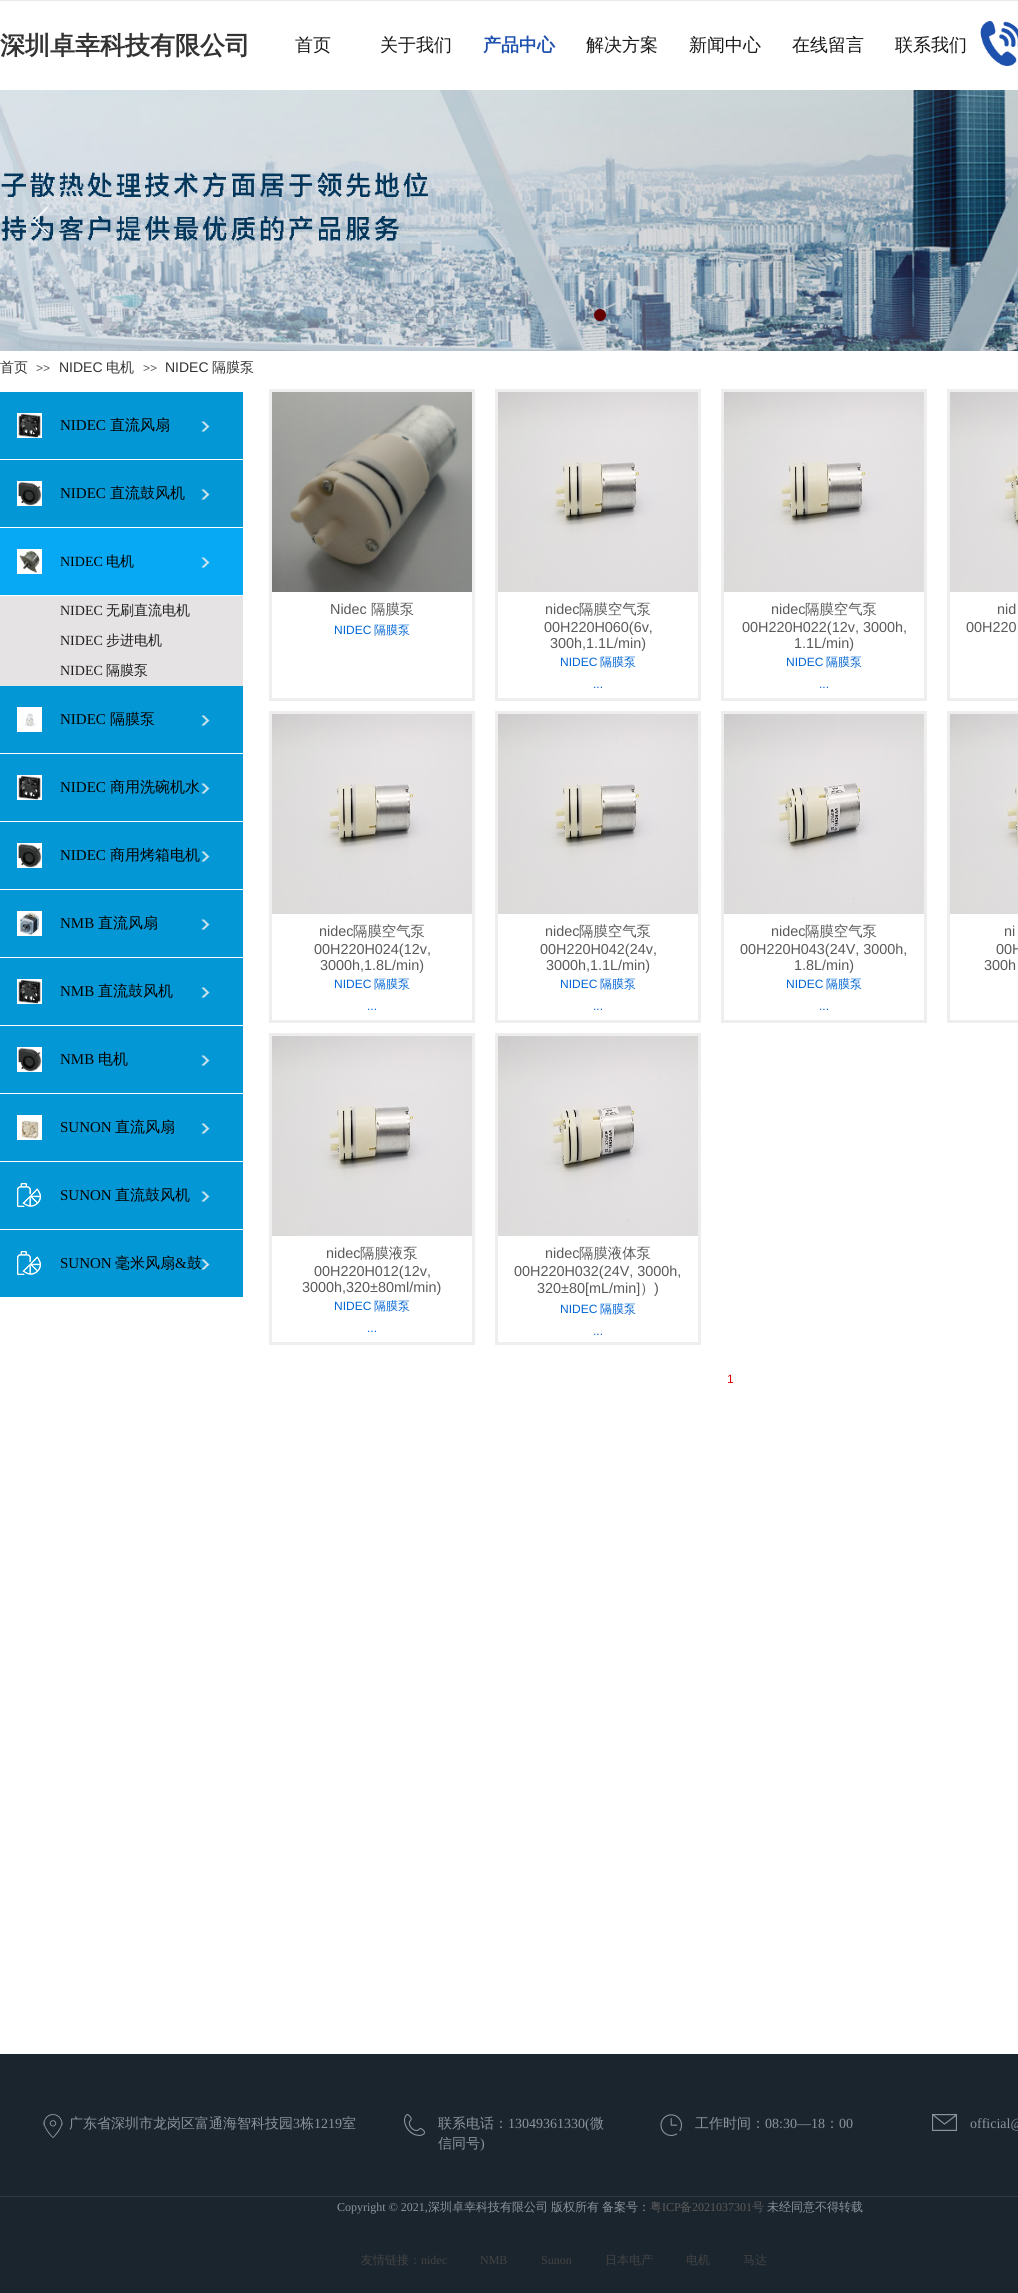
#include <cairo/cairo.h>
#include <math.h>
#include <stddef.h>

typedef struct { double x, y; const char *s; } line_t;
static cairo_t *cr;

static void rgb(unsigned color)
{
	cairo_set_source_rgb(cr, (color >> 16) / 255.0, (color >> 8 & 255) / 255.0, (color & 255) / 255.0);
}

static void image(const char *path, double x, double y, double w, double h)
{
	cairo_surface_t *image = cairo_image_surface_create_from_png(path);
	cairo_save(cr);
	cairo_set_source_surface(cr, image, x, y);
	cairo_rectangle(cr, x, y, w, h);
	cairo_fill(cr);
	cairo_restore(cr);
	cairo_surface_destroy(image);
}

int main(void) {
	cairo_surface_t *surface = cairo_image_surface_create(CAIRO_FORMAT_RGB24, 1018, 2293);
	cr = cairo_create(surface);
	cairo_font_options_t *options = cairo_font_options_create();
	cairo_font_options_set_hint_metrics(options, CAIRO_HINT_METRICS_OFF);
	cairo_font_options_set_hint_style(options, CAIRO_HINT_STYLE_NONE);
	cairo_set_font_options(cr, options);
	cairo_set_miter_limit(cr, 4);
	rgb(0xffffff);
	cairo_paint(cr);
	rgb(0xe9e9e9);
	cairo_rectangle(cr, 0, 0, 1018, 1);
	cairo_fill(cr);
	image("img/1.png", 980, 21, 38, 45);
	image("img/2.png", 0, 90, 1018, 261);
	image("img/3.png", 33, 207, 15, 28);
	rgb(0x660000);
	cairo_arc(cr, 600, 315, 6, 0, 2 * M_PI);
	cairo_fill(cr);
	rgb(0x0398d5);
	cairo_rectangle(cr, 0, 392, 243, 67);
	cairo_fill(cr);
	image("img/4.png", 17, 413, 25, 25);
	image("img/5.png", 201, 421, 9, 11);
	cairo_rectangle(cr, 0, 460, 243, 67);
	cairo_fill(cr);
	image("img/6.png", 17, 481, 25, 25);
	image("img/5.png", 201, 489, 9, 11);
	rgb(0x07a9f4);
	cairo_rectangle(cr, 0, 528, 243, 67);
	cairo_fill(cr);
	image("img/7.png", 17, 549, 25, 25);
	image("img/8.png", 201, 557, 9, 11);
	rgb(0xe5e3e3);
	cairo_rectangle(cr, 0, 596, 243, 90);
	cairo_fill(cr);
	rgb(0x0398d5);
	cairo_rectangle(cr, 0, 686, 243, 67);
	cairo_fill(cr);
	image("img/9.png", 17, 707, 25, 25);
	image("img/5.png", 201, 715, 9, 11);
	cairo_rectangle(cr, 0, 754, 243, 67);
	cairo_fill(cr);
	image("img/4.png", 17, 775, 25, 25);
	image("img/5.png", 201, 783, 9, 11);
	cairo_rectangle(cr, 0, 822, 243, 67);
	cairo_fill(cr);
	image("img/6.png", 17, 843, 25, 25);
	image("img/5.png", 201, 851, 9, 11);
	cairo_rectangle(cr, 0, 890, 243, 67);
	cairo_fill(cr);
	image("img/10.png", 17, 911, 25, 25);
	image("img/5.png", 201, 919, 9, 11);
	cairo_rectangle(cr, 0, 958, 243, 67);
	cairo_fill(cr);
	image("img/4.png", 17, 979, 25, 25);
	image("img/5.png", 201, 987, 9, 11);
	cairo_rectangle(cr, 0, 1026, 243, 67);
	cairo_fill(cr);
	image("img/6.png", 17, 1047, 25, 25);
	image("img/5.png", 201, 1055, 9, 11);
	cairo_rectangle(cr, 0, 1094, 243, 67);
	cairo_fill(cr);
	image("img/11.png", 17, 1115, 25, 25);
	image("img/5.png", 201, 1123, 9, 11);
	cairo_rectangle(cr, 0, 1162, 243, 67);
	cairo_fill(cr);
	image("img/12.png", 17, 1183, 24, 24);
	image("img/5.png", 201, 1191, 9, 11);
	cairo_rectangle(cr, 0, 1230, 243, 67);
	cairo_fill(cr);
	image("img/12.png", 17, 1251, 24, 24);
	cairo_rectangle(cr, 270.5, 390.5, 203, 309);
	rgb(0xeeeeee);
	cairo_set_line_width(cr, 3);
	cairo_stroke(cr);
	image("img/14.png", 272, 392, 200, 200);
	cairo_rectangle(cr, 496.5, 390.5, 203, 309);
	cairo_stroke(cr);
	image("img/15.png", 498, 392, 200, 200);
	cairo_rectangle(cr, 722.5, 390.5, 203, 309);
	cairo_stroke(cr);
	image("img/16.png", 724, 392, 200, 200);
	cairo_rectangle(cr, 948.5, 390.5, 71, 309);
	cairo_stroke(cr);
	image("img/17.png", 950, 392, 68, 200);
	cairo_rectangle(cr, 270.5, 712.5, 203, 309);
	cairo_stroke(cr);
	image("img/18.png", 272, 714, 200, 200);
	cairo_rectangle(cr, 496.5, 712.5, 203, 309);
	cairo_stroke(cr);
	image("img/19.png", 498, 714, 200, 200);
	cairo_rectangle(cr, 722.5, 712.5, 203, 309);
	cairo_stroke(cr);
	image("img/20.png", 724, 714, 200, 200);
	cairo_rectangle(cr, 948.5, 712.5, 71, 309);
	cairo_stroke(cr);
	image("img/21.png", 950, 714, 68, 200);
	cairo_rectangle(cr, 270.5, 1034.5, 203, 309);
	cairo_stroke(cr);
	image("img/22.png", 272, 1036, 200, 200);
	cairo_rectangle(cr, 496.5, 1034.5, 203, 309);
	cairo_stroke(cr);
	image("img/23.png", 498, 1036, 200, 200);
	rgb(0x1b252e);
	cairo_rectangle(cr, 0, 2054, 1018, 239);
	cairo_fill(cr);
	image("img/24.png", 43, 2114, 20, 24);
	image("img/25.png", 404, 2114, 21, 22);
	image("img/26.png", 660, 2114, 22, 22);
	image("img/27.png", 932, 2114, 25, 17);
	rgb(0x313a43);
	cairo_rectangle(cr, 0, 2196, 1018, 1);
	cairo_fill(cr);
	cairo_select_font_face(cr, "WenQuanYi Zen Hei", CAIRO_FONT_SLANT_NORMAL, CAIRO_FONT_WEIGHT_BOLD);
	cairo_set_font_size(cr, 25);
	rgb(0x333333);
	cairo_move_to(cr, 0, 54);
	cairo_show_text(cr, "深圳卓幸科技有限公司");
	cairo_select_font_face(cr, "WenQuanYi Zen Hei Medium", CAIRO_FONT_SLANT_NORMAL, CAIRO_FONT_WEIGHT_NORMAL);
	cairo_set_font_size(cr, 18);
	rgb(0x181818);
	cairo_move_to(cr, 295, 51);
	cairo_show_text(cr, "首页");
	cairo_move_to(cr, 380, 51);
	cairo_show_text(cr, "关于我们");
	cairo_select_font_face(cr, "WenQuanYi Zen Hei", CAIRO_FONT_SLANT_NORMAL, CAIRO_FONT_WEIGHT_BOLD);
	rgb(0x1e50ae);
	cairo_move_to(cr, 483, 51);
	cairo_show_text(cr, "产品中心");
	cairo_select_font_face(cr, "WenQuanYi Zen Hei Medium", CAIRO_FONT_SLANT_NORMAL, CAIRO_FONT_WEIGHT_NORMAL);
	rgb(0x181818);
	{
		static const line_t items[] = {
			{586, 51, "解决方案"},
			{689, 51, "新闻中心"},
			{792, 51, "在线留言"},
			{895, 51, "联系我们"},
		};
		for (size_t i = 0; i < sizeof items / sizeof *items; i++) {
			cairo_move_to(cr, items[i].x, items[i].y);
			cairo_show_text(cr, items[i].s);
		}
	}
	cairo_set_font_size(cr, 14);
	rgb(0x333333);
	cairo_move_to(cr, 0, 372);
	cairo_show_text(cr, "首页");
	cairo_select_font_face(cr, "Liberation Sans", CAIRO_FONT_SLANT_NORMAL, CAIRO_FONT_WEIGHT_NORMAL);
	cairo_set_font_size(cr, 12);
	rgb(0x5a5a5a);
	cairo_move_to(cr, 36, 372);
	cairo_show_text(cr, ">>");
	cairo_set_font_size(cr, 14);
	rgb(0x333333);
	cairo_move_to(cr, 59, 372);
	cairo_show_text(cr, "NIDEC");
	cairo_select_font_face(cr, "WenQuanYi Zen Hei Medium", CAIRO_FONT_SLANT_NORMAL, CAIRO_FONT_WEIGHT_NORMAL);
	cairo_move_to(cr, 106, 372);
	cairo_show_text(cr, "电机");
	cairo_select_font_face(cr, "Liberation Sans", CAIRO_FONT_SLANT_NORMAL, CAIRO_FONT_WEIGHT_NORMAL);
	cairo_set_font_size(cr, 12);
	rgb(0x5a5a5a);
	cairo_move_to(cr, 143, 372);
	cairo_show_text(cr, ">>");
	cairo_set_font_size(cr, 14);
	rgb(0x333333);
	cairo_move_to(cr, 165, 372);
	cairo_show_text(cr, "NIDEC");
	cairo_select_font_face(cr, "WenQuanYi Zen Hei Medium", CAIRO_FONT_SLANT_NORMAL, CAIRO_FONT_WEIGHT_NORMAL);
	cairo_move_to(cr, 212, 372);
	cairo_show_text(cr, "隔膜泵");
	cairo_select_font_face(cr, "Liberation Serif", CAIRO_FONT_SLANT_NORMAL, CAIRO_FONT_WEIGHT_NORMAL);
	cairo_set_font_size(cr, 15);
	rgb(0x000000);
	cairo_move_to(cr, 60, 430);
	cairo_show_text(cr, "NIDEC");
	cairo_select_font_face(cr, "WenQuanYi Zen Hei Medium", CAIRO_FONT_SLANT_NORMAL, CAIRO_FONT_WEIGHT_NORMAL);
	cairo_move_to(cr, 110, 430);
	cairo_show_text(cr, "直流风扇");
	cairo_select_font_face(cr, "Liberation Serif", CAIRO_FONT_SLANT_NORMAL, CAIRO_FONT_WEIGHT_NORMAL);
	cairo_move_to(cr, 60, 498);
	cairo_show_text(cr, "NIDEC");
	cairo_select_font_face(cr, "WenQuanYi Zen Hei Medium", CAIRO_FONT_SLANT_NORMAL, CAIRO_FONT_WEIGHT_NORMAL);
	cairo_move_to(cr, 110, 498);
	cairo_show_text(cr, "直流鼓风机");
	cairo_select_font_face(cr, "Liberation Serif", CAIRO_FONT_SLANT_NORMAL, CAIRO_FONT_WEIGHT_NORMAL);
	cairo_set_font_size(cr, 14);
	cairo_move_to(cr, 60, 566);
	cairo_show_text(cr, "NIDEC");
	cairo_select_font_face(cr, "WenQuanYi Zen Hei Medium", CAIRO_FONT_SLANT_NORMAL, CAIRO_FONT_WEIGHT_NORMAL);
	cairo_move_to(cr, 106, 566);
	cairo_show_text(cr, "电机");
	cairo_select_font_face(cr, "Liberation Serif", CAIRO_FONT_SLANT_NORMAL, CAIRO_FONT_WEIGHT_NORMAL);
	rgb(0x1e1e1e);
	cairo_move_to(cr, 60, 615);
	cairo_show_text(cr, "NIDEC");
	cairo_select_font_face(cr, "WenQuanYi Zen Hei Medium", CAIRO_FONT_SLANT_NORMAL, CAIRO_FONT_WEIGHT_NORMAL);
	cairo_move_to(cr, 106, 615);
	cairo_show_text(cr, "无刷直流电机");
	cairo_select_font_face(cr, "Liberation Serif", CAIRO_FONT_SLANT_NORMAL, CAIRO_FONT_WEIGHT_NORMAL);
	cairo_move_to(cr, 60, 645);
	cairo_show_text(cr, "NIDEC");
	cairo_select_font_face(cr, "WenQuanYi Zen Hei Medium", CAIRO_FONT_SLANT_NORMAL, CAIRO_FONT_WEIGHT_NORMAL);
	cairo_move_to(cr, 106, 645);
	cairo_show_text(cr, "步进电机");
	cairo_select_font_face(cr, "Liberation Serif", CAIRO_FONT_SLANT_NORMAL, CAIRO_FONT_WEIGHT_NORMAL);
	cairo_move_to(cr, 60, 675);
	cairo_show_text(cr, "NIDEC");
	cairo_select_font_face(cr, "WenQuanYi Zen Hei Medium", CAIRO_FONT_SLANT_NORMAL, CAIRO_FONT_WEIGHT_NORMAL);
	cairo_move_to(cr, 106, 675);
	cairo_show_text(cr, "隔膜泵");
	cairo_select_font_face(cr, "Liberation Serif", CAIRO_FONT_SLANT_NORMAL, CAIRO_FONT_WEIGHT_NORMAL);
	cairo_set_font_size(cr, 15);
	rgb(0x000000);
	cairo_move_to(cr, 60, 724);
	cairo_show_text(cr, "NIDEC");
	cairo_select_font_face(cr, "WenQuanYi Zen Hei Medium", CAIRO_FONT_SLANT_NORMAL, CAIRO_FONT_WEIGHT_NORMAL);
	cairo_move_to(cr, 110, 724);
	cairo_show_text(cr, "隔膜泵");
	cairo_select_font_face(cr, "Liberation Serif", CAIRO_FONT_SLANT_NORMAL, CAIRO_FONT_WEIGHT_NORMAL);
	cairo_move_to(cr, 60, 792);
	cairo_show_text(cr, "NIDEC");
	cairo_select_font_face(cr, "WenQuanYi Zen Hei Medium", CAIRO_FONT_SLANT_NORMAL, CAIRO_FONT_WEIGHT_NORMAL);
	cairo_move_to(cr, 110, 792);
	cairo_show_text(cr, "商用洗碗机水");
	cairo_select_font_face(cr, "Liberation Serif", CAIRO_FONT_SLANT_NORMAL, CAIRO_FONT_WEIGHT_NORMAL);
	cairo_move_to(cr, 60, 860);
	cairo_show_text(cr, "NIDEC");
	cairo_select_font_face(cr, "WenQuanYi Zen Hei Medium", CAIRO_FONT_SLANT_NORMAL, CAIRO_FONT_WEIGHT_NORMAL);
	cairo_move_to(cr, 110, 860);
	cairo_show_text(cr, "商用烤箱电机");
	cairo_select_font_face(cr, "Liberation Serif", CAIRO_FONT_SLANT_NORMAL, CAIRO_FONT_WEIGHT_NORMAL);
	cairo_move_to(cr, 60, 928);
	cairo_show_text(cr, "NMB");
	cairo_select_font_face(cr, "WenQuanYi Zen Hei Medium", CAIRO_FONT_SLANT_NORMAL, CAIRO_FONT_WEIGHT_NORMAL);
	cairo_move_to(cr, 98, 928);
	cairo_show_text(cr, "直流风扇");
	cairo_select_font_face(cr, "Liberation Serif", CAIRO_FONT_SLANT_NORMAL, CAIRO_FONT_WEIGHT_NORMAL);
	cairo_move_to(cr, 60, 996);
	cairo_show_text(cr, "NMB");
	cairo_select_font_face(cr, "WenQuanYi Zen Hei Medium", CAIRO_FONT_SLANT_NORMAL, CAIRO_FONT_WEIGHT_NORMAL);
	cairo_move_to(cr, 98, 996);
	cairo_show_text(cr, "直流鼓风机");
	cairo_select_font_face(cr, "Liberation Serif", CAIRO_FONT_SLANT_NORMAL, CAIRO_FONT_WEIGHT_NORMAL);
	cairo_move_to(cr, 60, 1064);
	cairo_show_text(cr, "NMB");
	cairo_select_font_face(cr, "WenQuanYi Zen Hei Medium", CAIRO_FONT_SLANT_NORMAL, CAIRO_FONT_WEIGHT_NORMAL);
	cairo_move_to(cr, 98, 1064);
	cairo_show_text(cr, "电机");
	cairo_select_font_face(cr, "Liberation Serif", CAIRO_FONT_SLANT_NORMAL, CAIRO_FONT_WEIGHT_NORMAL);
	cairo_move_to(cr, 60, 1132);
	cairo_show_text(cr, "SUNON");
	cairo_select_font_face(cr, "WenQuanYi Zen Hei Medium", CAIRO_FONT_SLANT_NORMAL, CAIRO_FONT_WEIGHT_NORMAL);
	cairo_move_to(cr, 115, 1132);
	cairo_show_text(cr, "直流风扇");
	cairo_select_font_face(cr, "Liberation Serif", CAIRO_FONT_SLANT_NORMAL, CAIRO_FONT_WEIGHT_NORMAL);
	cairo_move_to(cr, 60, 1200);
	cairo_show_text(cr, "SUNON");
	cairo_select_font_face(cr, "WenQuanYi Zen Hei Medium", CAIRO_FONT_SLANT_NORMAL, CAIRO_FONT_WEIGHT_NORMAL);
	cairo_move_to(cr, 115, 1200);
	cairo_show_text(cr, "直流鼓风机");
	cairo_select_font_face(cr, "Liberation Serif", CAIRO_FONT_SLANT_NORMAL, CAIRO_FONT_WEIGHT_NORMAL);
	cairo_move_to(cr, 60, 1268);
	cairo_show_text(cr, "SUNON");
	cairo_select_font_face(cr, "WenQuanYi Zen Hei Medium", CAIRO_FONT_SLANT_NORMAL, CAIRO_FONT_WEIGHT_NORMAL);
	cairo_move_to(cr, 115, 1268);
	cairo_show_text(cr, "毫米风扇");
	cairo_select_font_face(cr, "Liberation Serif", CAIRO_FONT_SLANT_NORMAL, CAIRO_FONT_WEIGHT_NORMAL);
	cairo_move_to(cr, 175, 1268);
	cairo_show_text(cr, "&");
	cairo_select_font_face(cr, "WenQuanYi Zen Hei Medium", CAIRO_FONT_SLANT_NORMAL, CAIRO_FONT_WEIGHT_NORMAL);
	cairo_move_to(cr, 187, 1268);
	cairo_show_text(cr, "鼓");
	image("img/13.png", 201, 1259, 9, 11);
	cairo_select_font_face(cr, "Liberation Sans", CAIRO_FONT_SLANT_NORMAL, CAIRO_FONT_WEIGHT_NORMAL);
	cairo_set_font_size(cr, 14.4);
	rgb(0x5a5a5a);
	cairo_move_to(cr, 330, 614);
	cairo_show_text(cr, "Nidec");
	cairo_select_font_face(cr, "WenQuanYi Zen Hei Medium", CAIRO_FONT_SLANT_NORMAL, CAIRO_FONT_WEIGHT_NORMAL);
	cairo_move_to(cr, 371, 614);
	cairo_show_text(cr, "隔膜泵");
	cairo_select_font_face(cr, "Liberation Sans", CAIRO_FONT_SLANT_NORMAL, CAIRO_FONT_WEIGHT_NORMAL);
	cairo_set_font_size(cr, 12);
	rgb(0x0064d4);
	cairo_move_to(cr, 334, 634);
	cairo_show_text(cr, "NIDEC");
	cairo_select_font_face(cr, "WenQuanYi Zen Hei Medium", CAIRO_FONT_SLANT_NORMAL, CAIRO_FONT_WEIGHT_NORMAL);
	cairo_move_to(cr, 374, 634);
	cairo_show_text(cr, "隔膜泵");
	cairo_select_font_face(cr, "Liberation Sans", CAIRO_FONT_SLANT_NORMAL, CAIRO_FONT_WEIGHT_NORMAL);
	cairo_set_font_size(cr, 14.4);
	rgb(0x5a5a5a);
	cairo_move_to(cr, 545, 614);
	cairo_show_text(cr, "nidec");
	cairo_select_font_face(cr, "WenQuanYi Zen Hei Medium", CAIRO_FONT_SLANT_NORMAL, CAIRO_FONT_WEIGHT_NORMAL);
	cairo_move_to(cr, 579, 614);
	cairo_show_text(cr, "隔膜空气泵");
	cairo_select_font_face(cr, "Liberation Sans", CAIRO_FONT_SLANT_NORMAL, CAIRO_FONT_WEIGHT_NORMAL);
	cairo_move_to(cr, 544, 632);
	cairo_show_text(cr, "00H220H060(6v,");
	cairo_move_to(cr, 550, 648);
	cairo_show_text(cr, "300h,1.1L/min)");
	cairo_set_font_size(cr, 12);
	rgb(0x0064d4);
	cairo_move_to(cr, 560, 666);
	cairo_show_text(cr, "NIDEC");
	cairo_select_font_face(cr, "WenQuanYi Zen Hei Medium", CAIRO_FONT_SLANT_NORMAL, CAIRO_FONT_WEIGHT_NORMAL);
	cairo_move_to(cr, 600, 666);
	cairo_show_text(cr, "隔膜泵");
	cairo_select_font_face(cr, "Liberation Sans", CAIRO_FONT_SLANT_NORMAL, CAIRO_FONT_WEIGHT_NORMAL);
	cairo_move_to(cr, 593, 688);
	cairo_show_text(cr, "...");
	cairo_set_font_size(cr, 14.4);
	rgb(0x5a5a5a);
	cairo_move_to(cr, 771, 614);
	cairo_show_text(cr, "nidec");
	cairo_select_font_face(cr, "WenQuanYi Zen Hei Medium", CAIRO_FONT_SLANT_NORMAL, CAIRO_FONT_WEIGHT_NORMAL);
	cairo_move_to(cr, 805, 614);
	cairo_show_text(cr, "隔膜空气泵");
	cairo_select_font_face(cr, "Liberation Sans", CAIRO_FONT_SLANT_NORMAL, CAIRO_FONT_WEIGHT_NORMAL);
	cairo_move_to(cr, 742, 632);
	cairo_show_text(cr, "00H220H022(12v, 3000h,");
	cairo_move_to(cr, 794, 648);
	cairo_show_text(cr, "1.1L/min)");
	cairo_set_font_size(cr, 12);
	rgb(0x0064d4);
	cairo_move_to(cr, 786, 666);
	cairo_show_text(cr, "NIDEC");
	cairo_select_font_face(cr, "WenQuanYi Zen Hei Medium", CAIRO_FONT_SLANT_NORMAL, CAIRO_FONT_WEIGHT_NORMAL);
	cairo_move_to(cr, 826, 666);
	cairo_show_text(cr, "隔膜泵");
	cairo_select_font_face(cr, "Liberation Sans", CAIRO_FONT_SLANT_NORMAL, CAIRO_FONT_WEIGHT_NORMAL);
	cairo_move_to(cr, 819, 688);
	cairo_show_text(cr, "...");
	cairo_set_font_size(cr, 14.4);
	rgb(0x5a5a5a);
	{
		static const line_t items[] = {
			{997, 614, "nid"},
			{966, 632, "00H220"},
			{319, 936, "nidec"},
		};
		for (size_t i = 0; i < sizeof items / sizeof *items; i++) {
			cairo_move_to(cr, items[i].x, items[i].y);
			cairo_show_text(cr, items[i].s);
		}
	}
	cairo_select_font_face(cr, "WenQuanYi Zen Hei Medium", CAIRO_FONT_SLANT_NORMAL, CAIRO_FONT_WEIGHT_NORMAL);
	cairo_move_to(cr, 353, 936);
	cairo_show_text(cr, "隔膜空气泵");
	cairo_select_font_face(cr, "Liberation Sans", CAIRO_FONT_SLANT_NORMAL, CAIRO_FONT_WEIGHT_NORMAL);
	cairo_move_to(cr, 314, 954);
	cairo_show_text(cr, "00H220H024(12v,");
	cairo_move_to(cr, 320, 970);
	cairo_show_text(cr, "3000h,1.8L/min)");
	cairo_set_font_size(cr, 12);
	rgb(0x0064d4);
	cairo_move_to(cr, 334, 988);
	cairo_show_text(cr, "NIDEC");
	cairo_select_font_face(cr, "WenQuanYi Zen Hei Medium", CAIRO_FONT_SLANT_NORMAL, CAIRO_FONT_WEIGHT_NORMAL);
	cairo_move_to(cr, 374, 988);
	cairo_show_text(cr, "隔膜泵");
	cairo_select_font_face(cr, "Liberation Sans", CAIRO_FONT_SLANT_NORMAL, CAIRO_FONT_WEIGHT_NORMAL);
	cairo_move_to(cr, 367, 1010);
	cairo_show_text(cr, "...");
	cairo_set_font_size(cr, 14.4);
	rgb(0x5a5a5a);
	cairo_move_to(cr, 545, 936);
	cairo_show_text(cr, "nidec");
	cairo_select_font_face(cr, "WenQuanYi Zen Hei Medium", CAIRO_FONT_SLANT_NORMAL, CAIRO_FONT_WEIGHT_NORMAL);
	cairo_move_to(cr, 579, 936);
	cairo_show_text(cr, "隔膜空气泵");
	cairo_select_font_face(cr, "Liberation Sans", CAIRO_FONT_SLANT_NORMAL, CAIRO_FONT_WEIGHT_NORMAL);
	cairo_move_to(cr, 540, 954);
	cairo_show_text(cr, "00H220H042(24v,");
	cairo_move_to(cr, 546, 970);
	cairo_show_text(cr, "3000h,1.1L/min)");
	cairo_set_font_size(cr, 12);
	rgb(0x0064d4);
	cairo_move_to(cr, 560, 988);
	cairo_show_text(cr, "NIDEC");
	cairo_select_font_face(cr, "WenQuanYi Zen Hei Medium", CAIRO_FONT_SLANT_NORMAL, CAIRO_FONT_WEIGHT_NORMAL);
	cairo_move_to(cr, 600, 988);
	cairo_show_text(cr, "隔膜泵");
	cairo_select_font_face(cr, "Liberation Sans", CAIRO_FONT_SLANT_NORMAL, CAIRO_FONT_WEIGHT_NORMAL);
	cairo_move_to(cr, 593, 1010);
	cairo_show_text(cr, "...");
	cairo_set_font_size(cr, 14.4);
	rgb(0x5a5a5a);
	cairo_move_to(cr, 771, 936);
	cairo_show_text(cr, "nidec");
	cairo_select_font_face(cr, "WenQuanYi Zen Hei Medium", CAIRO_FONT_SLANT_NORMAL, CAIRO_FONT_WEIGHT_NORMAL);
	cairo_move_to(cr, 805, 936);
	cairo_show_text(cr, "隔膜空气泵");
	cairo_select_font_face(cr, "Liberation Sans", CAIRO_FONT_SLANT_NORMAL, CAIRO_FONT_WEIGHT_NORMAL);
	cairo_move_to(cr, 740, 954);
	cairo_show_text(cr, "00H220H043(24V, 3000h,");
	cairo_move_to(cr, 794, 970);
	cairo_show_text(cr, "1.8L/min)");
	cairo_set_font_size(cr, 12);
	rgb(0x0064d4);
	cairo_move_to(cr, 786, 988);
	cairo_show_text(cr, "NIDEC");
	cairo_select_font_face(cr, "WenQuanYi Zen Hei Medium", CAIRO_FONT_SLANT_NORMAL, CAIRO_FONT_WEIGHT_NORMAL);
	cairo_move_to(cr, 826, 988);
	cairo_show_text(cr, "隔膜泵");
	cairo_select_font_face(cr, "Liberation Sans", CAIRO_FONT_SLANT_NORMAL, CAIRO_FONT_WEIGHT_NORMAL);
	cairo_move_to(cr, 819, 1010);
	cairo_show_text(cr, "...");
	cairo_set_font_size(cr, 14.4);
	rgb(0x5a5a5a);
	{
		static const line_t items[] = {
			{1004, 936, "ni"},
			{996, 954, "00H"},
			{984, 970, "300h"},
			{326, 1258, "nidec"},
		};
		for (size_t i = 0; i < sizeof items / sizeof *items; i++) {
			cairo_move_to(cr, items[i].x, items[i].y);
			cairo_show_text(cr, items[i].s);
		}
	}
	cairo_select_font_face(cr, "WenQuanYi Zen Hei Medium", CAIRO_FONT_SLANT_NORMAL, CAIRO_FONT_WEIGHT_NORMAL);
	cairo_move_to(cr, 360, 1258);
	cairo_show_text(cr, "隔膜液泵");
	cairo_select_font_face(cr, "Liberation Sans", CAIRO_FONT_SLANT_NORMAL, CAIRO_FONT_WEIGHT_NORMAL);
	cairo_move_to(cr, 314, 1276);
	cairo_show_text(cr, "00H220H012(12v,");
	cairo_move_to(cr, 302, 1292);
	cairo_show_text(cr, "3000h,320±80ml/min)");
	cairo_set_font_size(cr, 12);
	rgb(0x0064d4);
	cairo_move_to(cr, 334, 1310);
	cairo_show_text(cr, "NIDEC");
	cairo_select_font_face(cr, "WenQuanYi Zen Hei Medium", CAIRO_FONT_SLANT_NORMAL, CAIRO_FONT_WEIGHT_NORMAL);
	cairo_move_to(cr, 374, 1310);
	cairo_show_text(cr, "隔膜泵");
	cairo_select_font_face(cr, "Liberation Sans", CAIRO_FONT_SLANT_NORMAL, CAIRO_FONT_WEIGHT_NORMAL);
	cairo_move_to(cr, 367, 1332);
	cairo_show_text(cr, "...");
	cairo_set_font_size(cr, 14.4);
	rgb(0x5a5a5a);
	cairo_move_to(cr, 545, 1258);
	cairo_show_text(cr, "nidec");
	cairo_select_font_face(cr, "WenQuanYi Zen Hei Medium", CAIRO_FONT_SLANT_NORMAL, CAIRO_FONT_WEIGHT_NORMAL);
	cairo_move_to(cr, 579, 1258);
	cairo_show_text(cr, "隔膜液体泵");
	cairo_select_font_face(cr, "Liberation Sans", CAIRO_FONT_SLANT_NORMAL, CAIRO_FONT_WEIGHT_NORMAL);
	cairo_move_to(cr, 514, 1276);
	cairo_show_text(cr, "00H220H032(24V, 3000h,");
	cairo_move_to(cr, 537, 1293);
	cairo_show_text(cr, "320±80[mL/min]");
	cairo_select_font_face(cr, "WenQuanYi Zen Hei Medium", CAIRO_FONT_SLANT_NORMAL, CAIRO_FONT_WEIGHT_NORMAL);
	cairo_move_to(cr, 640, 1293);
	cairo_show_text(cr, "）");
	cairo_select_font_face(cr, "Liberation Sans", CAIRO_FONT_SLANT_NORMAL, CAIRO_FONT_WEIGHT_NORMAL);
	cairo_move_to(cr, 654, 1293);
	cairo_show_text(cr, ")");
	cairo_set_font_size(cr, 12);
	rgb(0x0064d4);
	cairo_move_to(cr, 560, 1313);
	cairo_show_text(cr, "NIDEC");
	cairo_select_font_face(cr, "WenQuanYi Zen Hei Medium", CAIRO_FONT_SLANT_NORMAL, CAIRO_FONT_WEIGHT_NORMAL);
	cairo_move_to(cr, 600, 1313);
	cairo_show_text(cr, "隔膜泵");
	cairo_select_font_face(cr, "Liberation Sans", CAIRO_FONT_SLANT_NORMAL, CAIRO_FONT_WEIGHT_NORMAL);
	cairo_move_to(cr, 593, 1335);
	cairo_show_text(cr, "...");
	rgb(0xdd0000);
	cairo_move_to(cr, 727, 1383);
	cairo_show_text(cr, "1");
	cairo_select_font_face(cr, "WenQuanYi Zen Hei Medium", CAIRO_FONT_SLANT_NORMAL, CAIRO_FONT_WEIGHT_NORMAL);
	cairo_set_font_size(cr, 14);
	rgb(0x8b939d);
	cairo_move_to(cr, 69, 2128);
	cairo_show_text(cr, "广东省深圳市龙岗区富通海智科技园");
	cairo_select_font_face(cr, "Liberation Serif", CAIRO_FONT_SLANT_NORMAL, CAIRO_FONT_WEIGHT_NORMAL);
	cairo_move_to(cr, 293, 2128);
	cairo_show_text(cr, "3");
	cairo_select_font_face(cr, "WenQuanYi Zen Hei Medium", CAIRO_FONT_SLANT_NORMAL, CAIRO_FONT_WEIGHT_NORMAL);
	cairo_move_to(cr, 300, 2128);
	cairo_show_text(cr, "栋");
	cairo_select_font_face(cr, "Liberation Serif", CAIRO_FONT_SLANT_NORMAL, CAIRO_FONT_WEIGHT_NORMAL);
	cairo_move_to(cr, 314, 2128);
	cairo_show_text(cr, "1219");
	cairo_select_font_face(cr, "WenQuanYi Zen Hei Medium", CAIRO_FONT_SLANT_NORMAL, CAIRO_FONT_WEIGHT_NORMAL);
	cairo_move_to(cr, 342, 2128);
	cairo_show_text(cr, "室");
	cairo_move_to(cr, 438, 2128);
	cairo_show_text(cr, "联系电话：");
	cairo_select_font_face(cr, "Liberation Serif", CAIRO_FONT_SLANT_NORMAL, CAIRO_FONT_WEIGHT_NORMAL);
	cairo_move_to(cr, 508, 2128);
	cairo_show_text(cr, "13049361330(");
	cairo_select_font_face(cr, "WenQuanYi Zen Hei Medium", CAIRO_FONT_SLANT_NORMAL, CAIRO_FONT_WEIGHT_NORMAL);
	cairo_move_to(cr, 590, 2128);
	cairo_show_text(cr, "微");
	cairo_move_to(cr, 438, 2148);
	cairo_show_text(cr, "信同号");
	cairo_select_font_face(cr, "Liberation Serif", CAIRO_FONT_SLANT_NORMAL, CAIRO_FONT_WEIGHT_NORMAL);
	cairo_move_to(cr, 480, 2148);
	cairo_show_text(cr, ")");
	cairo_select_font_face(cr, "WenQuanYi Zen Hei Medium", CAIRO_FONT_SLANT_NORMAL, CAIRO_FONT_WEIGHT_NORMAL);
	cairo_move_to(cr, 695, 2128);
	cairo_show_text(cr, "工作时间：");
	cairo_select_font_face(cr, "Liberation Serif", CAIRO_FONT_SLANT_NORMAL, CAIRO_FONT_WEIGHT_NORMAL);
	cairo_move_to(cr, 765, 2128);
	cairo_show_text(cr, "08:30—18");
	cairo_select_font_face(cr, "WenQuanYi Zen Hei Medium", CAIRO_FONT_SLANT_NORMAL, CAIRO_FONT_WEIGHT_NORMAL);
	cairo_move_to(cr, 825, 2128);
	cairo_show_text(cr, "：");
	cairo_select_font_face(cr, "Liberation Serif", CAIRO_FONT_SLANT_NORMAL, CAIRO_FONT_WEIGHT_NORMAL);
	cairo_move_to(cr, 839, 2128);
	cairo_show_text(cr, "00");
	cairo_move_to(cr, 970, 2128);
	cairo_show_text(cr, "official@");
	cairo_set_font_size(cr, 12);
	cairo_move_to(cr, 337, 2211);
	cairo_show_text(cr, "Copyright © 2021,");
	cairo_select_font_face(cr, "WenQuanYi Zen Hei Medium", CAIRO_FONT_SLANT_NORMAL, CAIRO_FONT_WEIGHT_NORMAL);
	{
		static const line_t items[] = {
			{428, 2211, "深圳卓幸科技有限公司"},
			{551, 2211, "版权所有"},
			{602, 2211, "备案号："},
		};
		for (size_t i = 0; i < sizeof items / sizeof *items; i++) {
			cairo_move_to(cr, items[i].x, items[i].y);
			cairo_show_text(cr, items[i].s);
		}
	}
	rgb(0x5a5a5a);
	cairo_move_to(cr, 650, 2211);
	cairo_show_text(cr, "粤");
	cairo_select_font_face(cr, "Liberation Serif", CAIRO_FONT_SLANT_NORMAL, CAIRO_FONT_WEIGHT_NORMAL);
	cairo_move_to(cr, 662, 2211);
	cairo_show_text(cr, "ICP");
	cairo_select_font_face(cr, "WenQuanYi Zen Hei Medium", CAIRO_FONT_SLANT_NORMAL, CAIRO_FONT_WEIGHT_NORMAL);
	cairo_move_to(cr, 680, 2211);
	cairo_show_text(cr, "备");
	cairo_select_font_face(cr, "Liberation Serif", CAIRO_FONT_SLANT_NORMAL, CAIRO_FONT_WEIGHT_NORMAL);
	cairo_move_to(cr, 692, 2211);
	cairo_show_text(cr, "2021037301");
	cairo_select_font_face(cr, "WenQuanYi Zen Hei Medium", CAIRO_FONT_SLANT_NORMAL, CAIRO_FONT_WEIGHT_NORMAL);
	cairo_move_to(cr, 752, 2211);
	cairo_show_text(cr, "号");
	rgb(0x8b939d);
	cairo_move_to(cr, 767, 2211);
	cairo_show_text(cr, "未经同意不得转载");
	rgb(0x434343);
	cairo_move_to(cr, 361, 2264);
	cairo_show_text(cr, "友情链接：");
	cairo_select_font_face(cr, "Liberation Serif", CAIRO_FONT_SLANT_NORMAL, CAIRO_FONT_WEIGHT_NORMAL);
	{
		static const line_t items[] = {
			{421, 2264, "nidec"},
			{480, 2264, "NMB"},
			{541, 2264, "Sunon"},
		};
		for (size_t i = 0; i < sizeof items / sizeof *items; i++) {
			cairo_move_to(cr, items[i].x, items[i].y);
			cairo_show_text(cr, items[i].s);
		}
	}
	cairo_select_font_face(cr, "WenQuanYi Zen Hei Medium", CAIRO_FONT_SLANT_NORMAL, CAIRO_FONT_WEIGHT_NORMAL);
	{
		static const line_t items[] = {
			{605, 2264, "日本电产"},
			{686, 2264, "电机"},
			{743, 2264, "马达"},
		};
		for (size_t i = 0; i < sizeof items / sizeof *items; i++) {
			cairo_move_to(cr, items[i].x, items[i].y);
			cairo_show_text(cr, items[i].s);
		}
	}
	cairo_surface_write_to_png(surface, "page.png");
	cairo_font_options_destroy(options);
	cairo_destroy(cr);
	cairo_surface_destroy(surface);
	return 0;
}
